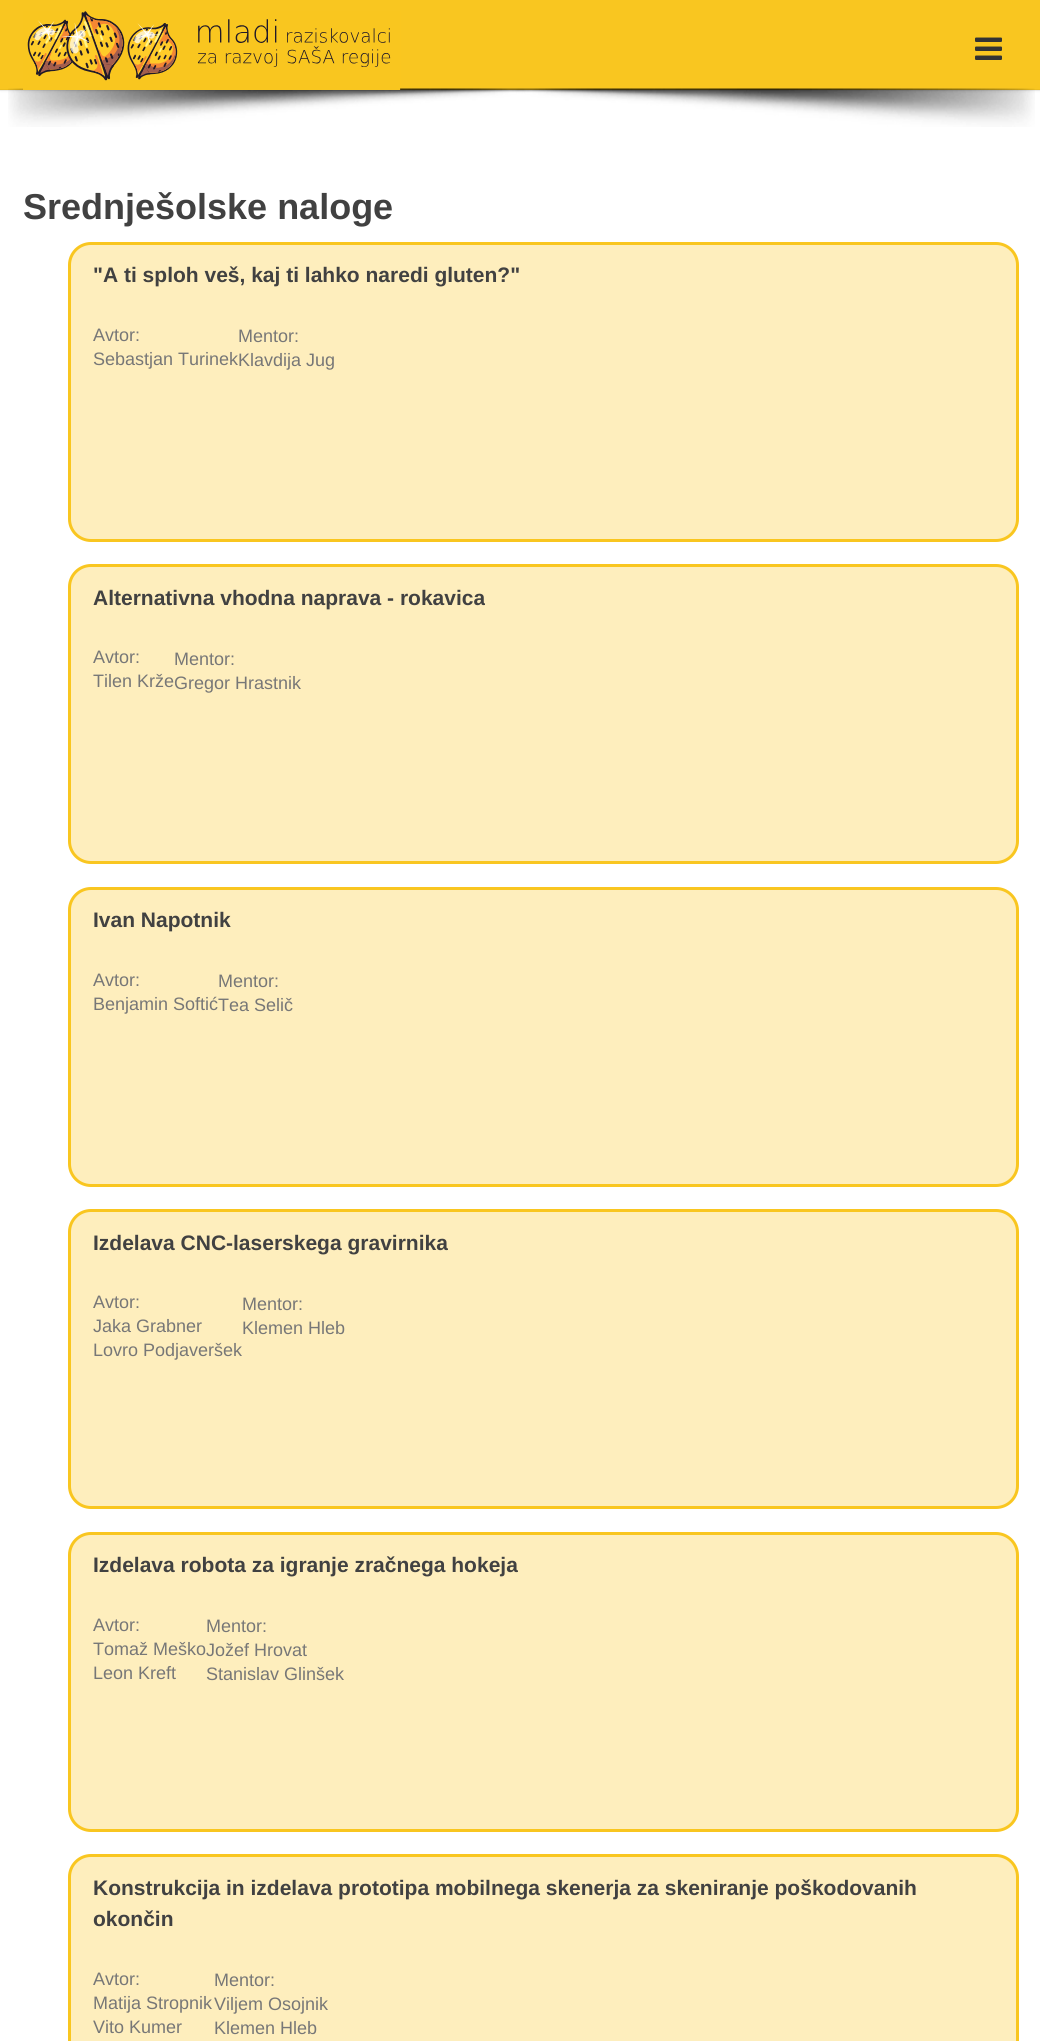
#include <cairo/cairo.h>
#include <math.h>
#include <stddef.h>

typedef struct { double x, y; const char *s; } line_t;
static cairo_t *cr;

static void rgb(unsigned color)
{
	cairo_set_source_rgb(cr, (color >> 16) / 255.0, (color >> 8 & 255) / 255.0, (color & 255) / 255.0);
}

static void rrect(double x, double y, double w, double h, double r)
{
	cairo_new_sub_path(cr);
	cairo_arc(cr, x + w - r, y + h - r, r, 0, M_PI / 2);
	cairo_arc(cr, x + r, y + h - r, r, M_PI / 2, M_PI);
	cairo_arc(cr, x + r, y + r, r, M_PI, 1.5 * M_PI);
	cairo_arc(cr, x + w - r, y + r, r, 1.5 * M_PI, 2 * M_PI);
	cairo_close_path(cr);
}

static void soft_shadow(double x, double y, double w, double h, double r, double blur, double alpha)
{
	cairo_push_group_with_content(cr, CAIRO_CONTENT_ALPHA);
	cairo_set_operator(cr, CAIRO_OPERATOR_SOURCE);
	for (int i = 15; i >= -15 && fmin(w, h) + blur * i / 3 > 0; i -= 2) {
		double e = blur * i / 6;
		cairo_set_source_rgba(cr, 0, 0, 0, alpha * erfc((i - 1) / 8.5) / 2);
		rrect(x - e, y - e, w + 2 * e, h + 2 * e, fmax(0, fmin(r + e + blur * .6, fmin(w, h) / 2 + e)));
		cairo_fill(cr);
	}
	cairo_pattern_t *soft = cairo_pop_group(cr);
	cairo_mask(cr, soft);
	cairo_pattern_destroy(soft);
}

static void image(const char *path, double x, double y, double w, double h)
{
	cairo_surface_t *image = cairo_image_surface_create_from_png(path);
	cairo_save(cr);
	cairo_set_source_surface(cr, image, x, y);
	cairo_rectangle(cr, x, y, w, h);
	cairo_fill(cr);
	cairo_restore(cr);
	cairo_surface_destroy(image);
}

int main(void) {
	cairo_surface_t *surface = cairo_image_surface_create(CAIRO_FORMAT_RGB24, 1040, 2041);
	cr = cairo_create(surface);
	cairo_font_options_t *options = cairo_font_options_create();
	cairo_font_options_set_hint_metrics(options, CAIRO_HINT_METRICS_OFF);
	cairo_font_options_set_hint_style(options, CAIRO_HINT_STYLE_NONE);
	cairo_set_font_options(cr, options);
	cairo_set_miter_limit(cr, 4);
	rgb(0xffffff);
	cairo_paint(cr);
	rgb(0x000000);
	soft_shadow(0, 0, 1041, 90, 0, 1.5, 0.1);
	rgb(0xf9c620);
	cairo_rectangle(cr, 0, 0, 1040, 90);
	cairo_fill(cr);
	cairo_set_source_rgba(cr, 0, 0, 0, 0.05);
	cairo_rectangle(cr, 0, 89, 1040, 2);
	cairo_fill(cr);
	image("img/3.png", 8, 88, 1027, 39);
	image("img/1.png", 23, 11, 378, 79);
	image("img/2.png", 975, 37, 27, 23);
	rgb(0xfeeebd);
	rrect(69.5, 243.5, 948, 297, 21.5);
	cairo_fill_preserve(cr);
	rgb(0xf9c620);
	cairo_set_line_width(cr, 3);
	cairo_stroke(cr);
	rgb(0xfeeebd);
	rrect(69.5, 565.5, 948, 297, 21.5);
	cairo_fill_preserve(cr);
	rgb(0xf9c620);
	cairo_stroke(cr);
	rgb(0xfeeebd);
	rrect(69.5, 888.5, 948, 297, 21.5);
	cairo_fill_preserve(cr);
	rgb(0xf9c620);
	cairo_stroke(cr);
	rgb(0xfeeebd);
	rrect(69.5, 1210.5, 948, 297, 21.5);
	cairo_fill_preserve(cr);
	rgb(0xf9c620);
	cairo_stroke(cr);
	rgb(0xfeeebd);
	rrect(69.5, 1533.5, 948, 297, 21.5);
	cairo_fill_preserve(cr);
	rgb(0xf9c620);
	cairo_stroke(cr);
	rgb(0xfeeebd);
	rrect(69.5, 1855.5, 948, 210, 21.5);
	cairo_fill_preserve(cr);
	rgb(0xf9c620);
	cairo_stroke(cr);
	cairo_select_font_face(cr, "Liberation Sans", CAIRO_FONT_SLANT_NORMAL, CAIRO_FONT_WEIGHT_BOLD);
	cairo_set_font_size(cr, 36);
	rgb(0x414141);
	cairo_move_to(cr, 23, 219);
	cairo_show_text(cr, "Srednješolske naloge");
	cairo_set_font_size(cr, 21);
	cairo_move_to(cr, 93, 282);
	cairo_show_text(cr, "\"A ti sploh veš, kaj ti lahko naredi gluten?\"");
	cairo_select_font_face(cr, "Liberation Sans", CAIRO_FONT_SLANT_NORMAL, CAIRO_FONT_WEIGHT_NORMAL);
	cairo_set_font_size(cr, 18);
	rgb(0x777777);
	{
		static const line_t items[] = {
			{93, 341, "Avtor:"},
			{93, 365, "Sebastjan Turinek"},
			{238, 342, "Mentor:"},
			{238, 366, "Klavdija Jug"},
		};
		for (size_t i = 0; i < sizeof items / sizeof *items; i++) {
			cairo_move_to(cr, items[i].x, items[i].y);
			cairo_show_text(cr, items[i].s);
		}
	}
	cairo_select_font_face(cr, "Liberation Sans", CAIRO_FONT_SLANT_NORMAL, CAIRO_FONT_WEIGHT_BOLD);
	cairo_set_font_size(cr, 21);
	rgb(0x414141);
	cairo_move_to(cr, 93, 605);
	cairo_show_text(cr, "Alternativna vhodna naprava - rokavica");
	cairo_select_font_face(cr, "Liberation Sans", CAIRO_FONT_SLANT_NORMAL, CAIRO_FONT_WEIGHT_NORMAL);
	cairo_set_font_size(cr, 18);
	rgb(0x777777);
	{
		static const line_t items[] = {
			{93, 663, "Avtor:"},
			{93, 687, "Tilen Krže"},
			{174, 665, "Mentor:"},
			{174, 689, "Gregor Hrastnik"},
		};
		for (size_t i = 0; i < sizeof items / sizeof *items; i++) {
			cairo_move_to(cr, items[i].x, items[i].y);
			cairo_show_text(cr, items[i].s);
		}
	}
	cairo_select_font_face(cr, "Liberation Sans", CAIRO_FONT_SLANT_NORMAL, CAIRO_FONT_WEIGHT_BOLD);
	cairo_set_font_size(cr, 21);
	rgb(0x414141);
	cairo_move_to(cr, 93, 927);
	cairo_show_text(cr, "Ivan Napotnik");
	cairo_select_font_face(cr, "Liberation Sans", CAIRO_FONT_SLANT_NORMAL, CAIRO_FONT_WEIGHT_NORMAL);
	cairo_set_font_size(cr, 18);
	rgb(0x777777);
	{
		static const line_t items[] = {
			{93, 986, "Avtor:"},
			{93, 1010, "Benjamin Softić"},
			{218, 987, "Mentor:"},
			{218, 1011, "Tea Selič"},
		};
		for (size_t i = 0; i < sizeof items / sizeof *items; i++) {
			cairo_move_to(cr, items[i].x, items[i].y);
			cairo_show_text(cr, items[i].s);
		}
	}
	cairo_select_font_face(cr, "Liberation Sans", CAIRO_FONT_SLANT_NORMAL, CAIRO_FONT_WEIGHT_BOLD);
	cairo_set_font_size(cr, 21);
	rgb(0x414141);
	cairo_move_to(cr, 93, 1250);
	cairo_show_text(cr, "Izdelava CNC-laserskega gravirnika");
	cairo_select_font_face(cr, "Liberation Sans", CAIRO_FONT_SLANT_NORMAL, CAIRO_FONT_WEIGHT_NORMAL);
	cairo_set_font_size(cr, 18);
	rgb(0x777777);
	{
		static const line_t items[] = {
			{93, 1308, "Avtor:"},
			{93, 1332, "Jaka Grabner"},
			{93, 1356, "Lovro Podjaveršek"},
			{242, 1310, "Mentor:"},
			{242, 1334, "Klemen Hleb"},
		};
		for (size_t i = 0; i < sizeof items / sizeof *items; i++) {
			cairo_move_to(cr, items[i].x, items[i].y);
			cairo_show_text(cr, items[i].s);
		}
	}
	cairo_select_font_face(cr, "Liberation Sans", CAIRO_FONT_SLANT_NORMAL, CAIRO_FONT_WEIGHT_BOLD);
	cairo_set_font_size(cr, 21);
	rgb(0x414141);
	cairo_move_to(cr, 93, 1572);
	cairo_show_text(cr, "Izdelava robota za igranje zračnega hokeja");
	cairo_select_font_face(cr, "Liberation Sans", CAIRO_FONT_SLANT_NORMAL, CAIRO_FONT_WEIGHT_NORMAL);
	cairo_set_font_size(cr, 18);
	rgb(0x777777);
	{
		static const line_t items[] = {
			{93, 1631, "Avtor:"},
			{93, 1655, "Tomaž Meško"},
			{93, 1679, "Leon Kreft"},
			{206, 1632, "Mentor:"},
			{206, 1656, "Jožef Hrovat"},
			{206, 1680, "Stanislav Glinšek"},
		};
		for (size_t i = 0; i < sizeof items / sizeof *items; i++) {
			cairo_move_to(cr, items[i].x, items[i].y);
			cairo_show_text(cr, items[i].s);
		}
	}
	cairo_select_font_face(cr, "Liberation Sans", CAIRO_FONT_SLANT_NORMAL, CAIRO_FONT_WEIGHT_BOLD);
	cairo_set_font_size(cr, 21);
	rgb(0x414141);
	cairo_move_to(cr, 93, 1895);
	cairo_show_text(cr, "Konstrukcija in izdelava prototipa mobilnega skenerja za skeniranje poškodovanih");
	cairo_move_to(cr, 93, 1926);
	cairo_show_text(cr, "okončin");
	cairo_select_font_face(cr, "Liberation Sans", CAIRO_FONT_SLANT_NORMAL, CAIRO_FONT_WEIGHT_NORMAL);
	cairo_set_font_size(cr, 18);
	rgb(0x777777);
	{
		static const line_t items[] = {
			{93, 1985, "Avtor:"},
			{93, 2009, "Matija Stropnik"},
			{93, 2033, "Vito Kumer"},
			{214, 1986, "Mentor:"},
			{214, 2010, "Viljem Osojnik"},
			{214, 2034, "Klemen Hleb"},
		};
		for (size_t i = 0; i < sizeof items / sizeof *items; i++) {
			cairo_move_to(cr, items[i].x, items[i].y);
			cairo_show_text(cr, items[i].s);
		}
	}
	cairo_surface_write_to_png(surface, "page.png");
	cairo_font_options_destroy(options);
	cairo_destroy(cr);
	cairo_surface_destroy(surface);
	return 0;
}
